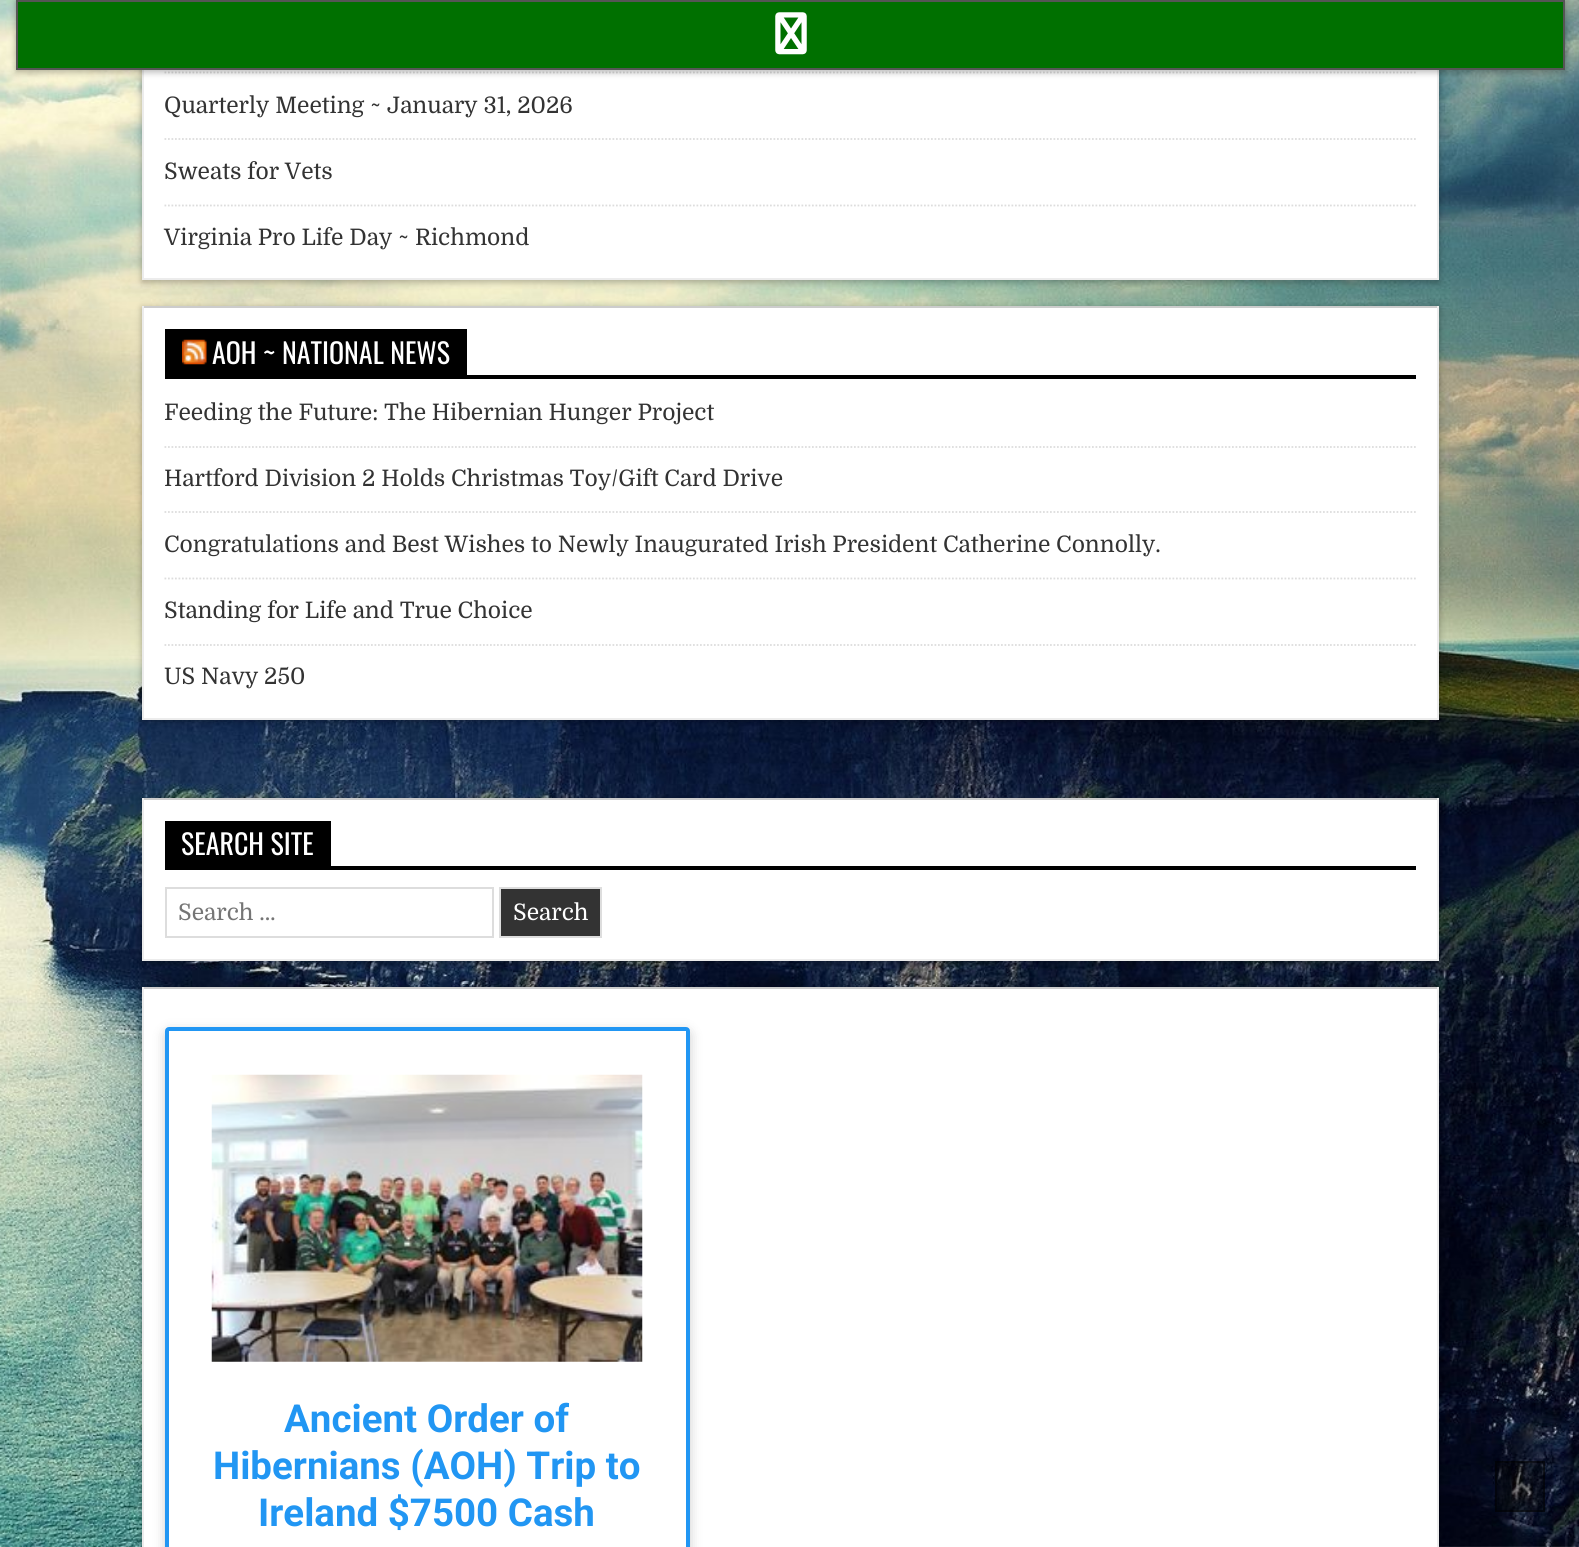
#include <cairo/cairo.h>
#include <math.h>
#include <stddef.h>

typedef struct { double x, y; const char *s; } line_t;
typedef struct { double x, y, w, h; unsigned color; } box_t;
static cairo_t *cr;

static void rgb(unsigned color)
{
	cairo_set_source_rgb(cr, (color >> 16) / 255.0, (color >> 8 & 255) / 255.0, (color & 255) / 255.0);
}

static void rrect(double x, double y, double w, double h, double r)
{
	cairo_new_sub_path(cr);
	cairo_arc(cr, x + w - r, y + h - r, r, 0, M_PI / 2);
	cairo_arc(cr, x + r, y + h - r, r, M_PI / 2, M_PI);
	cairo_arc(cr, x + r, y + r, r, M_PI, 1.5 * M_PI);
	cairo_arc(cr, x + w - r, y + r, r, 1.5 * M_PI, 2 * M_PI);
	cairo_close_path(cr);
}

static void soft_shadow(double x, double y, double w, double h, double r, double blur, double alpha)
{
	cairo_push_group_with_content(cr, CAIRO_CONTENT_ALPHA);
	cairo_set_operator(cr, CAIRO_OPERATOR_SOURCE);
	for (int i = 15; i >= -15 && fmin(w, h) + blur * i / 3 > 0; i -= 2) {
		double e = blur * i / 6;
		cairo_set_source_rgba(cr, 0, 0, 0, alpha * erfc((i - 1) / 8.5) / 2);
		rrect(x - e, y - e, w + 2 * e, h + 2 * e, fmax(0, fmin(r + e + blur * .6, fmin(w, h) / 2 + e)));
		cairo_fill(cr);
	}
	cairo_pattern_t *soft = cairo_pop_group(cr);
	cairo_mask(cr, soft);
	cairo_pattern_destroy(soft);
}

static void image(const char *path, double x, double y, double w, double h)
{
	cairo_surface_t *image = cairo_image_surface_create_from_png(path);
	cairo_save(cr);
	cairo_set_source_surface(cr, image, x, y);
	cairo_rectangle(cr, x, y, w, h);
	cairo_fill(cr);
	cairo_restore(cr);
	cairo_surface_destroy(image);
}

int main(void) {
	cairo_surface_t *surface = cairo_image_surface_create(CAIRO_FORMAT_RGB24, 1579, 1547);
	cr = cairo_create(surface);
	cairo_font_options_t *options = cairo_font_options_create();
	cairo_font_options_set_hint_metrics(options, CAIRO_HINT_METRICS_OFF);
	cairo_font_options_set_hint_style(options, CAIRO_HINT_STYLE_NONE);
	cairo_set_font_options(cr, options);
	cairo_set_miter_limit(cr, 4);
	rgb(0xffffff);
	cairo_paint(cr);
	image("img/1.png", 0, 0, 1579, 1547);
	rgb(0x000000);
	soft_shadow(142, -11, 1297, 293, 0, 3.5, 0.3);
	{
		static const box_t items[] = {
			{144, 70, 1293, 208, 0xffffff},
			{1437, 70, 2, 210, 0xececec},
			{142, 278, 1297, 2, 0xececec},
			{142, 70, 2, 210, 0xececec},
		};
		for (size_t i = 0; i < sizeof items / sizeof *items; i++) {
			rgb(items[i].color);
			cairo_rectangle(cr, items[i].x, items[i].y, items[i].w, items[i].h);
			cairo_fill(cr);
		}
	}
	cairo_new_path(cr);
	cairo_move_to(cr, 164.5, 72.5);
	cairo_line_to(cr, 1416, 72.5);
	rgb(0xdddddd);
	cairo_set_line_width(cr, 1.8);
	cairo_set_dash(cr, (double[]){1.75, 1.75}, 2, 0);
	cairo_stroke(cr);
	rgb(0x000000);
	soft_shadow(16, 2, 1549, 70, 0, 3.5, 0.3);
	rgb(0x007000);
	cairo_rectangle(cr, 17, 1, 1547, 68);
	cairo_fill_preserve(cr);
	rgb(0x555555);
	cairo_set_line_width(cr, 2);
	cairo_set_dash(cr, NULL, 0, 0);
	cairo_stroke(cr);
	image("img/2.png", 775, 12, 32, 43);
	cairo_new_path(cr);
	cairo_move_to(cr, 164.5, 139);
	cairo_line_to(cr, 1416, 139);
	rgb(0xdddddd);
	cairo_set_line_width(cr, 1.8);
	cairo_set_dash(cr, (double[]){1.75, 1.75}, 2, 0);
	cairo_stroke(cr);
	cairo_new_path(cr);
	cairo_move_to(cr, 164.5, 205.5);
	cairo_line_to(cr, 1416, 205.5);
	cairo_stroke(cr);
	rgb(0x000000);
	soft_shadow(142, 308, 1297, 413, 0, 3.5, 0.3);
	{
		static const box_t items[] = {
			{144, 308, 1293, 410, 0xffffff},
			{142, 306, 1297, 2, 0xcccccc},
			{1437, 306, 2, 413, 0xececec},
			{142, 718, 1297, 2, 0xececec},
			{142, 306, 2, 413, 0xececec},
			{165, 375, 1251, 4, 0x000000},
			{165, 329, 302, 46, 0x000000},
		};
		for (size_t i = 0; i < sizeof items / sizeof *items; i++) {
			rgb(items[i].color);
			cairo_rectangle(cr, items[i].x, items[i].y, items[i].w, items[i].h);
			cairo_fill(cr);
		}
	}
	image("img/3.png", 182, 339, 25, 26);
	cairo_new_path(cr);
	cairo_move_to(cr, 164.5, 447);
	cairo_line_to(cr, 1416, 447);
	rgb(0xdddddd);
	cairo_stroke(cr);
	cairo_new_path(cr);
	cairo_move_to(cr, 164.5, 512);
	cairo_line_to(cr, 1416, 512);
	cairo_stroke(cr);
	cairo_new_path(cr);
	cairo_move_to(cr, 164.5, 578.5);
	cairo_line_to(cr, 1416, 578.5);
	cairo_stroke(cr);
	cairo_new_path(cr);
	cairo_move_to(cr, 164.5, 645);
	cairo_line_to(cr, 1416, 645);
	cairo_stroke(cr);
	rgb(0x000000);
	soft_shadow(142, 800, 1297, 163, 0, 3.5, 0.3);
	{
		static const box_t items[] = {
			{144, 800, 1293, 159, 0xffffff},
			{142, 798, 1297, 2, 0xcccccc},
			{1437, 798, 2, 163, 0xececec},
			{142, 959, 1297, 2, 0xececec},
			{142, 798, 2, 163, 0xececec},
			{165, 866, 1251, 4, 0x000000},
			{165, 821, 166, 45, 0x000000},
		};
		for (size_t i = 0; i < sizeof items / sizeof *items; i++) {
			rgb(items[i].color);
			cairo_rectangle(cr, items[i].x, items[i].y, items[i].w, items[i].h);
			cairo_fill(cr);
		}
	}
	cairo_rectangle(cr, 166, 888, 327, 49);
	rgb(0xdddddd);
	cairo_set_line_width(cr, 2);
	cairo_set_dash(cr, NULL, 0, 0);
	cairo_stroke(cr);
	rgb(0x333333);
	cairo_rectangle(cr, 500, 888, 101, 49);
	cairo_fill_preserve(cr);
	rgb(0xdddddd);
	cairo_stroke(cr);
	rgb(0x000000);
	soft_shadow(142, 989, 1297, 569, 0, 3.5, 0.3);
	{
		static const box_t items[] = {
			{144, 989, 1293, 558, 0xffffff},
			{142, 987, 1297, 2, 0xcccccc},
			{1437, 987, 2, 560, 0xececec},
			{142, 987, 2, 560, 0xececec},
		};
		for (size_t i = 0; i < sizeof items / sizeof *items; i++) {
			rgb(items[i].color);
			cairo_rectangle(cr, items[i].x, items[i].y, items[i].w, items[i].h);
			cairo_fill(cr);
		}
	}
	rgb(0x000000);
	soft_shadow(165, 1031, 525, 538, 4, 6, 0.2);
	rgb(0xffffff);
	rrect(167, 1029, 521, 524, 2);
	cairo_fill_preserve(cr);
	rgb(0x2196f3);
	cairo_set_line_width(cr, 4);
	cairo_stroke(cr);
	image("img/4.png", 211, 1074, 432, 288);
	cairo_set_source_rgba(cr, 0, 0, 0, 0.4);
	cairo_rectangle(cr, 1495, 1461, 50, 51);
	cairo_fill(cr);
	image("img/5.png", 1511, 1481, 22, 14);
	cairo_rectangle(cr, 1496, 1462, 48, 49);
	cairo_set_line_width(cr, 2);
	cairo_stroke(cr);
	cairo_select_font_face(cr, "Domine", CAIRO_FONT_SLANT_NORMAL, CAIRO_FONT_WEIGHT_NORMAL);
	cairo_set_font_size(cr, 22.75);
	rgb(0x333333);
	{
		static const line_t items[] = {
			{164, 113, "Quarterly Meeting ~ January 31, 2026"},
			{164, 179, "Sweats for Vets"},
			{164, 245, "Virginia Pro Life Day ~ Richmond"},
		};
		for (size_t i = 0; i < sizeof items / sizeof *items; i++) {
			cairo_move_to(cr, items[i].x, items[i].y);
			cairo_show_text(cr, items[i].s);
		}
	}
	cairo_select_font_face(cr, "Oswald", CAIRO_FONT_SLANT_NORMAL, CAIRO_FONT_WEIGHT_NORMAL);
	cairo_set_font_size(cr, 28);
	rgb(0xffffff);
	cairo_move_to(cr, 212, 364);
	cairo_show_text(cr, "AOH ~ NATIONAL NEWS");
	cairo_select_font_face(cr, "Domine", CAIRO_FONT_SLANT_NORMAL, CAIRO_FONT_WEIGHT_NORMAL);
	cairo_set_font_size(cr, 22.75);
	rgb(0x333333);
	{
		static const line_t items[] = {
			{164, 420, "Feeding the Future: The Hibernian Hunger Project"},
			{164, 486, "Hartford Division 2 Holds Christmas Toy/Gift Card Drive"},
			{164, 552, "Congratulations and Best Wishes to Newly Inaugurated Irish President Catherine Connolly."},
			{164, 618, "Standing for Life and True Choice"},
			{164, 684, "US Navy 250"},
		};
		for (size_t i = 0; i < sizeof items / sizeof *items; i++) {
			cairo_move_to(cr, items[i].x, items[i].y);
			cairo_show_text(cr, items[i].s);
		}
	}
	cairo_select_font_face(cr, "Oswald", CAIRO_FONT_SLANT_NORMAL, CAIRO_FONT_WEIGHT_NORMAL);
	cairo_set_font_size(cr, 28);
	rgb(0xffffff);
	cairo_move_to(cr, 181, 855);
	cairo_show_text(cr, "SEARCH SITE");
	cairo_select_font_face(cr, "Domine", CAIRO_FONT_SLANT_NORMAL, CAIRO_FONT_WEIGHT_NORMAL);
	cairo_set_font_size(cr, 22.75);
	rgb(0x757575);
	cairo_move_to(cr, 178, 920);
	cairo_show_text(cr, "Search …");
	rgb(0xffffff);
	cairo_move_to(cr, 513, 920);
	cairo_show_text(cr, "Search");
	cairo_select_font_face(cr, "Roboto", CAIRO_FONT_SLANT_NORMAL, CAIRO_FONT_WEIGHT_BOLD);
	cairo_set_font_size(cr, 38.5);
	rgb(0x2196f3);
	{
		static const line_t items[] = {
			{284, 1432, "Ancient Order of"},
			{213, 1479, "Hibernians (AOH) Trip to"},
			{258, 1526, "Ireland $7500 Cash"},
		};
		for (size_t i = 0; i < sizeof items / sizeof *items; i++) {
			cairo_move_to(cr, items[i].x, items[i].y);
			cairo_show_text(cr, items[i].s);
		}
	}
	cairo_surface_write_to_png(surface, "page.png");
	cairo_font_options_destroy(options);
	cairo_destroy(cr);
	cairo_surface_destroy(surface);
	return 0;
}
